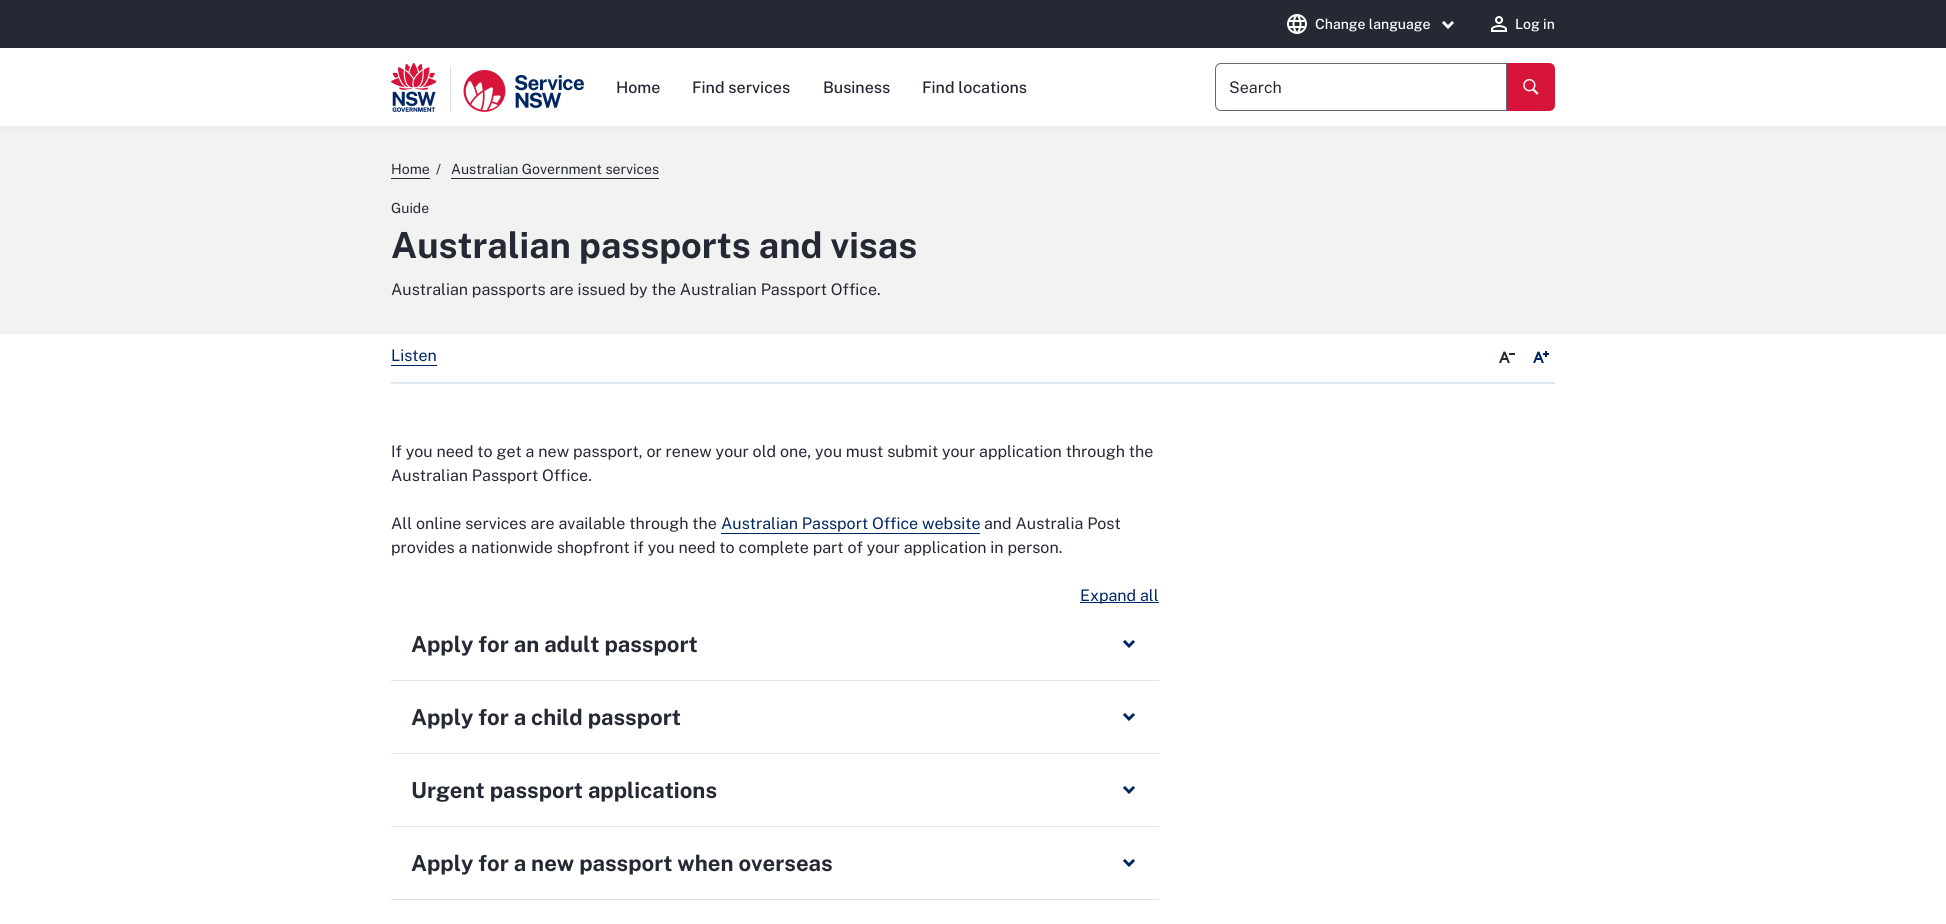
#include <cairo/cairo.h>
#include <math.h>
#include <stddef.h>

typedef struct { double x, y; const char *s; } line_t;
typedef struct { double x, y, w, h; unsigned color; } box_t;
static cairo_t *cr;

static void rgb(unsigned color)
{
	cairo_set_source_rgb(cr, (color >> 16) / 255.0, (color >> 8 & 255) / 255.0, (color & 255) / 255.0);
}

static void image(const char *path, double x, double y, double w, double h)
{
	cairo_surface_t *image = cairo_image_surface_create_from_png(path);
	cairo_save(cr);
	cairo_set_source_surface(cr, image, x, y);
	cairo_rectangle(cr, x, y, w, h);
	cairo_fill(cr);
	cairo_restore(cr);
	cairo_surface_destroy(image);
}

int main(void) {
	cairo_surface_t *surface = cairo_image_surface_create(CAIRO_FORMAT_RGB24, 1946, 924);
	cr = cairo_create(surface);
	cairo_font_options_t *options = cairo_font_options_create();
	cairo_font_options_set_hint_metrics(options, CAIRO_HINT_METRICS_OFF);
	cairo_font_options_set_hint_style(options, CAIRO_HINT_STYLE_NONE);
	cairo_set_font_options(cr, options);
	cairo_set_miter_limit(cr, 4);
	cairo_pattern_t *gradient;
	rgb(0xffffff);
	cairo_paint(cr);
	rgb(0x242934);
	cairo_rectangle(cr, 0, 0, 1946, 48);
	cairo_fill(cr);
	image("img/1.png", 1287, 14, 20, 20);
	image("img/2.png", 1442, 21, 12, 8);
	image("img/3.png", 1491, 16, 16, 16);
	rgb(0xecf1f3);
	cairo_rectangle(cr, 0, 126, 1946, 1);
	cairo_fill(cr);
	image("img/4.png", 391, 63, 46, 49);
	rgb(0xdee3e5);
	cairo_rectangle(cr, 450, 66, 1, 46);
	cairo_fill(cr);
	image("img/5.png", 463, 70, 121, 42);
	cairo_new_path(cr);
	cairo_move_to(cr, 1221, 63.5);
	cairo_line_to(cr, 1506.5, 63.5);
	cairo_line_to(cr, 1506.5, 110.5);
	cairo_line_to(cr, 1221, 110.5);
	cairo_curve_to(cr, 1218, 110.5, 1215.5, 108, 1215.5, 105);
	cairo_line_to(cr, 1215.5, 69);
	cairo_curve_to(cr, 1215.5, 66, 1218, 63.5, 1221, 63.5);
	cairo_close_path(cr);
	rgb(0x646974);
	cairo_set_line_width(cr, 1);
	cairo_stroke(cr);
	rgb(0xd7153a);
	cairo_new_path(cr);
	cairo_move_to(cr, 1508, 64);
	cairo_line_to(cr, 1549, 64);
	cairo_curve_to(cr, 1552, 64, 1554, 66, 1554, 69);
	cairo_line_to(cr, 1554, 105);
	cairo_curve_to(cr, 1554, 108, 1552, 110, 1549, 110);
	cairo_line_to(cr, 1508, 110);
	cairo_close_path(cr);
	cairo_fill_preserve(cr);
	cairo_set_line_width(cr, 2);
	cairo_stroke(cr);
	image("img/6.png", 1523, 79, 16, 16);
	gradient = cairo_pattern_create_linear(973, 127, 973, 133);
	cairo_pattern_add_color_stop_rgba(gradient, 0, 0.922, 0.922, 0.922, 1);
	cairo_pattern_add_color_stop_rgba(gradient, 1, 0.949, 0.949, 0.949, 1);
	cairo_set_source(cr, gradient);
	cairo_pattern_destroy(gradient);
	cairo_rectangle(cr, 0, 127, 1946, 6);
	cairo_fill(cr);
	{
		static const box_t items[] = {
			{0, 133, 1946, 201, 0xf2f2f2},
			{391, 178, 39, 1, 0x242934},
			{451, 178, 208, 1, 0x242934},
			{391, 382, 1164, 2, 0xdeeaf0},
			{391, 365, 46, 1, 0x002664},
		};
		for (size_t i = 0; i < sizeof items / sizeof *items; i++) {
			rgb(items[i].color);
			cairo_rectangle(cr, items[i].x, items[i].y, items[i].w, items[i].h);
			cairo_fill(cr);
		}
	}
	image("img/7.png", 1499, 351, 16, 12);
	image("img/8.png", 1533, 351, 16, 12);
	{
		static const box_t items[] = {
			{721, 533, 259, 1, 0x002664},
			{1080, 602, 79, 1, 0x002664},
			{391, 680, 768, 1, 0xdee3e5},
		};
		for (size_t i = 0; i < sizeof items / sizeof *items; i++) {
			rgb(items[i].color);
			cairo_rectangle(cr, items[i].x, items[i].y, items[i].w, items[i].h);
			cairo_fill(cr);
		}
	}
	image("img/9.png", 1123, 640, 12, 8);
	cairo_rectangle(cr, 391, 753, 768, 1);
	cairo_fill(cr);
	image("img/9.png", 1123, 713, 12, 8);
	cairo_rectangle(cr, 391, 826, 768, 1);
	cairo_fill(cr);
	image("img/9.png", 1123, 786, 12, 8);
	cairo_rectangle(cr, 391, 899, 768, 1);
	cairo_fill(cr);
	image("img/9.png", 1123, 859, 12, 8);
	cairo_select_font_face(cr, "Public Sans Medium", CAIRO_FONT_SLANT_NORMAL, CAIRO_FONT_WEIGHT_NORMAL);
	cairo_set_font_size(cr, 14);
	rgb(0xffffff);
	cairo_move_to(cr, 1315, 29);
	cairo_show_text(cr, "Change language");
	cairo_move_to(cr, 1515, 29);
	cairo_show_text(cr, "Log in");
	cairo_set_font_size(cr, 16);
	rgb(0x242934);
	{
		static const line_t items[] = {
			{616, 93, "Home"},
			{692, 93, "Find services"},
			{823, 93, "Business"},
			{922, 93, "Find locations"},
		};
		for (size_t i = 0; i < sizeof items / sizeof *items; i++) {
			cairo_move_to(cr, items[i].x, items[i].y);
			cairo_show_text(cr, items[i].s);
		}
	}
	cairo_select_font_face(cr, "Public Sans", CAIRO_FONT_SLANT_NORMAL, CAIRO_FONT_WEIGHT_NORMAL);
	cairo_move_to(cr, 1229, 93);
	cairo_show_text(cr, "Search");
	cairo_set_font_size(cr, 14);
	{
		static const line_t items[] = {
			{391, 174, "Home"},
			{436, 174, "/"},
			{451, 174, "Australian Government services"},
			{391, 213, "Guide"},
		};
		for (size_t i = 0; i < sizeof items / sizeof *items; i++) {
			cairo_move_to(cr, items[i].x, items[i].y);
			cairo_show_text(cr, items[i].s);
		}
	}
	cairo_select_font_face(cr, "Public Sans", CAIRO_FONT_SLANT_NORMAL, CAIRO_FONT_WEIGHT_BOLD);
	cairo_set_font_size(cr, 36);
	cairo_move_to(cr, 391, 258);
	cairo_show_text(cr, "Australian passports and visas");
	cairo_select_font_face(cr, "Public Sans", CAIRO_FONT_SLANT_NORMAL, CAIRO_FONT_WEIGHT_NORMAL);
	cairo_set_font_size(cr, 16);
	cairo_move_to(cr, 391, 295);
	cairo_show_text(cr, "Australian passports are issued by the Australian Passport Office.");
	rgb(0x002664);
	cairo_move_to(cr, 391, 361);
	cairo_show_text(cr, "Listen");
	rgb(0x242934);
	{
		static const line_t items[] = {
			{391, 457, "If you need to get a new passport, or renew your old one, you must submit your application through the"},
			{391, 481, "Australian Passport Office."},
			{391, 529, "All online services are available through the"},
		};
		for (size_t i = 0; i < sizeof items / sizeof *items; i++) {
			cairo_move_to(cr, items[i].x, items[i].y);
			cairo_show_text(cr, items[i].s);
		}
	}
	rgb(0x002664);
	cairo_move_to(cr, 721, 529);
	cairo_show_text(cr, "Australian Passport Office website");
	rgb(0x242934);
	cairo_move_to(cr, 984, 529);
	cairo_show_text(cr, "and Australia Post");
	cairo_move_to(cr, 391, 553);
	cairo_show_text(cr, "provides a nationwide shopfront if you need to complete part of your application in person.");
	rgb(0x002664);
	cairo_move_to(cr, 1080, 601);
	cairo_show_text(cr, "Expand all");
	cairo_select_font_face(cr, "Public Sans", CAIRO_FONT_SLANT_NORMAL, CAIRO_FONT_WEIGHT_BOLD);
	cairo_set_font_size(cr, 22);
	rgb(0x242934);
	{
		static const line_t items[] = {
			{411, 652, "Apply for an adult passport"},
			{411, 725, "Apply for a child passport"},
			{411, 798, "Urgent passport applications"},
			{411, 871, "Apply for a new passport when overseas"},
		};
		for (size_t i = 0; i < sizeof items / sizeof *items; i++) {
			cairo_move_to(cr, items[i].x, items[i].y);
			cairo_show_text(cr, items[i].s);
		}
	}
	cairo_surface_write_to_png(surface, "page.png");
	cairo_font_options_destroy(options);
	cairo_destroy(cr);
	cairo_surface_destroy(surface);
	return 0;
}
